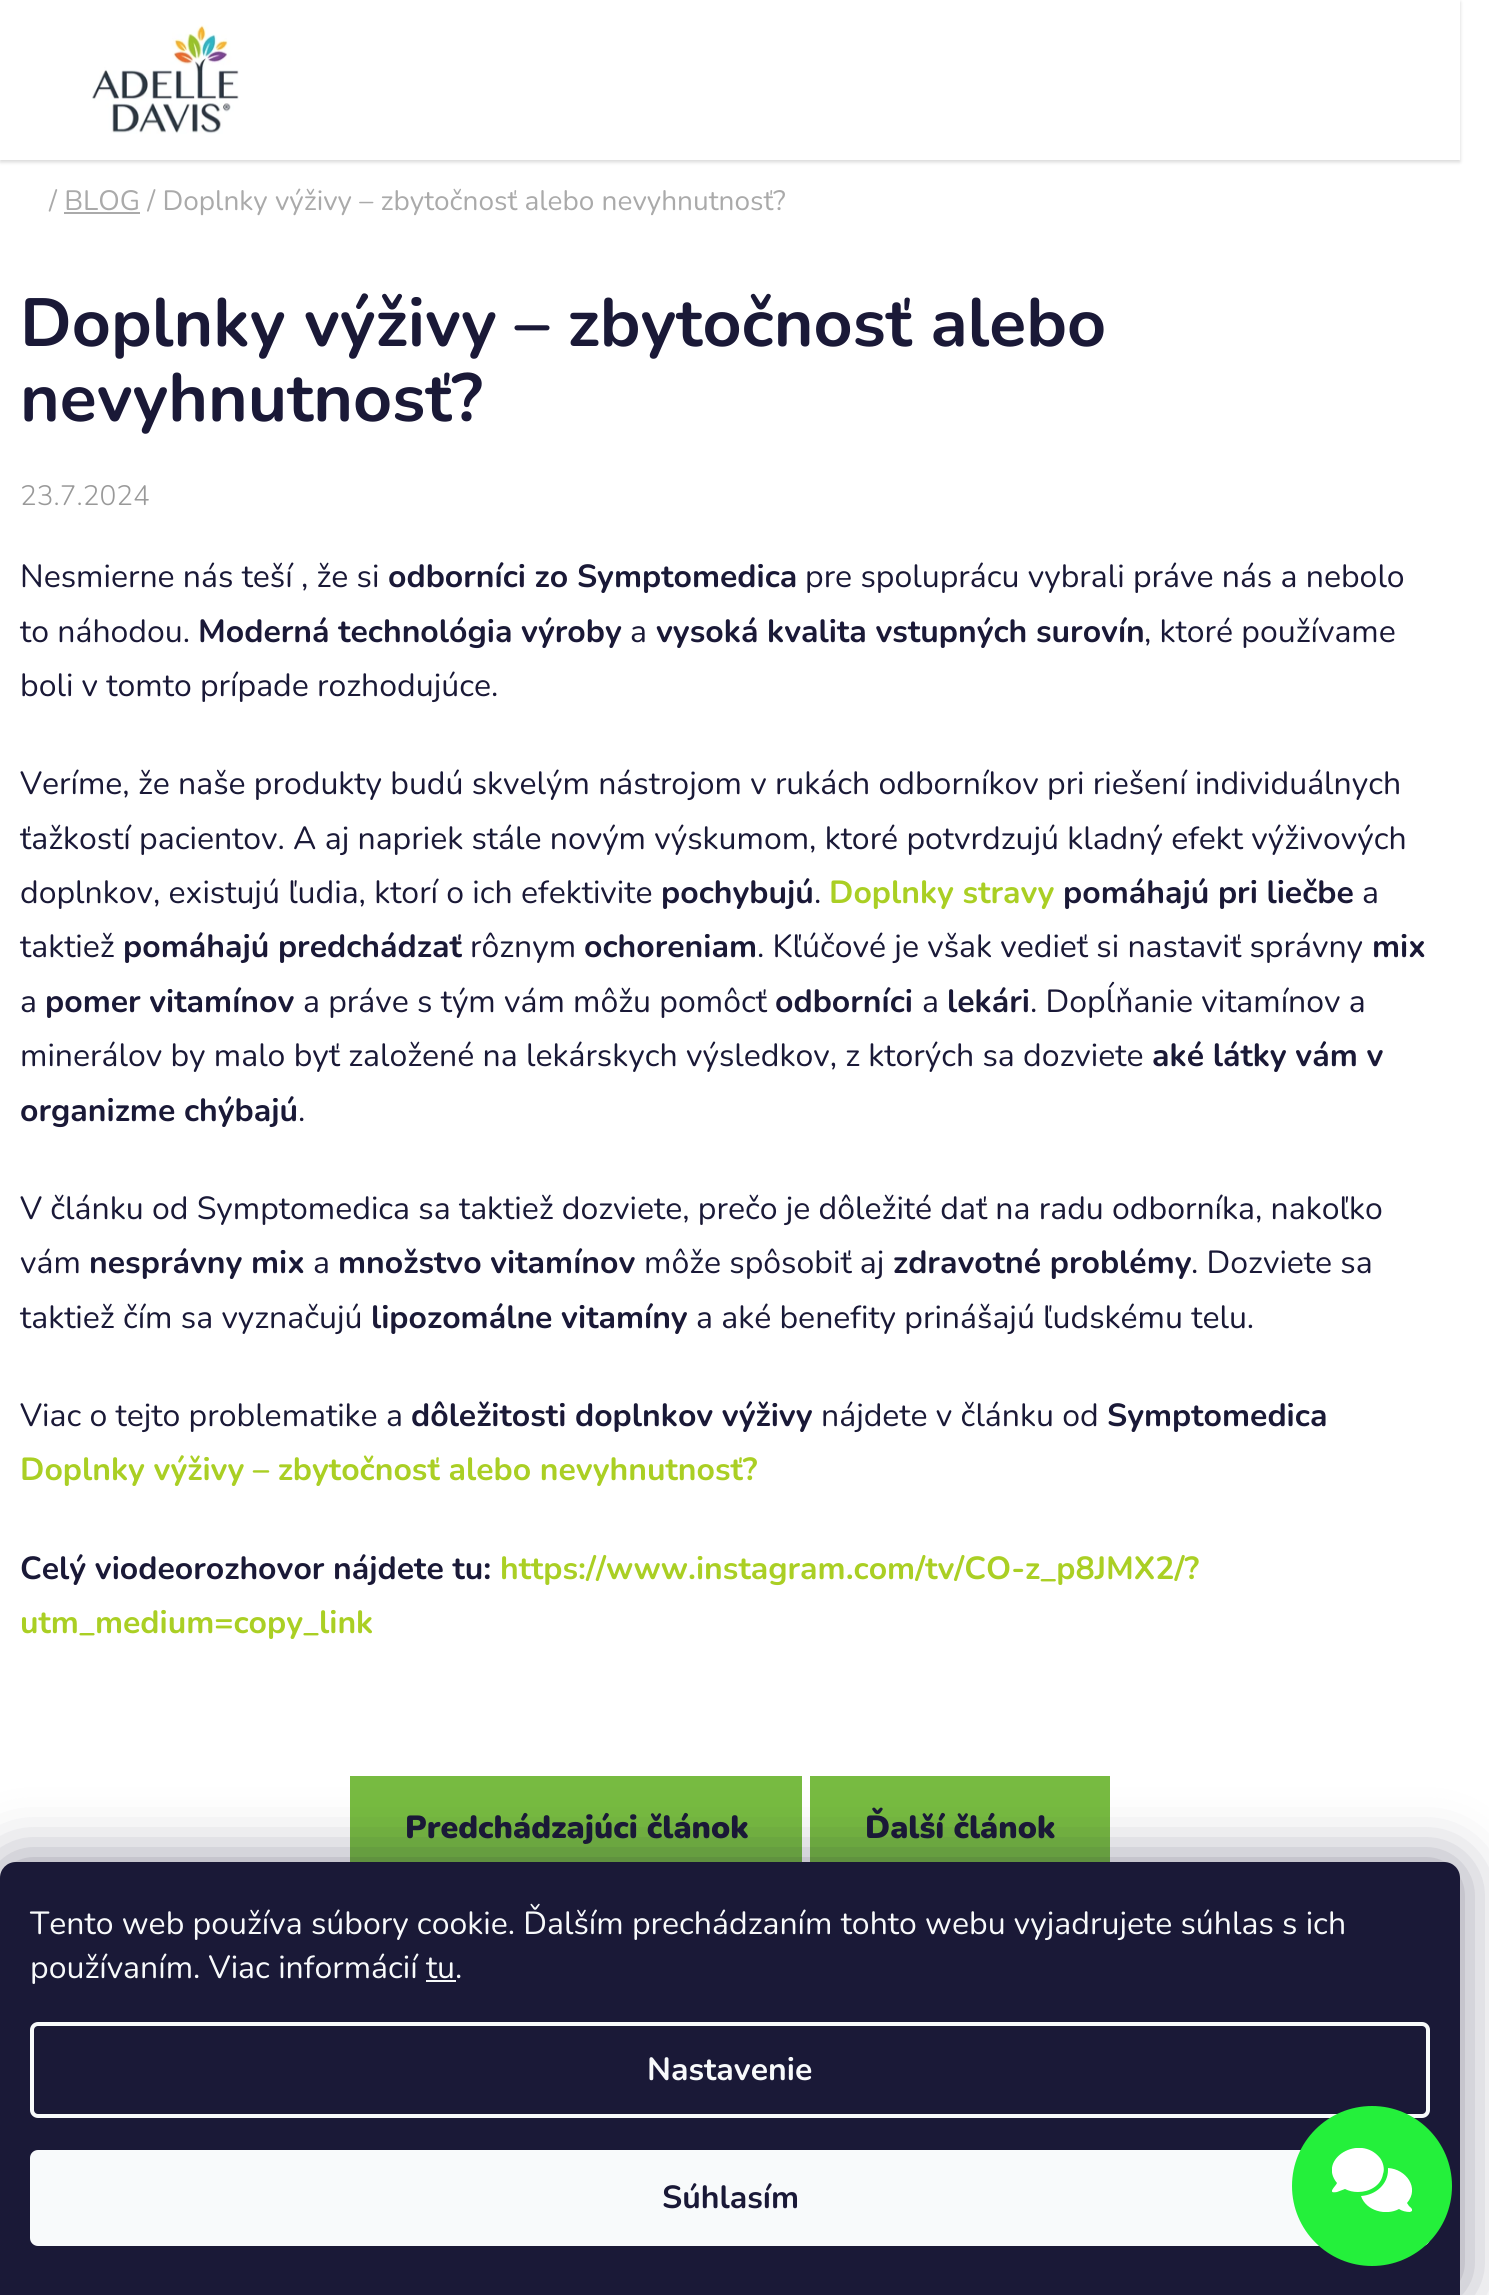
#include <cairo/cairo.h>
#include <math.h>
#include <stddef.h>

typedef struct { double x, y; const char *s; } line_t;
typedef struct { double x, y, w, h; unsigned color; } box_t;
static cairo_t *cr;

static void rgb(unsigned color)
{
	cairo_set_source_rgb(cr, (color >> 16) / 255.0, (color >> 8 & 255) / 255.0, (color & 255) / 255.0);
}

static void rrect(double x, double y, double w, double h, double r)
{
	cairo_new_sub_path(cr);
	cairo_arc(cr, x + w - r, y + h - r, r, 0, M_PI / 2);
	cairo_arc(cr, x + r, y + h - r, r, M_PI / 2, M_PI);
	cairo_arc(cr, x + r, y + r, r, M_PI, 1.5 * M_PI);
	cairo_arc(cr, x + w - r, y + r, r, 1.5 * M_PI, 2 * M_PI);
	cairo_close_path(cr);
}

static void soft_shadow(double x, double y, double w, double h, double r, double blur, double alpha)
{
	cairo_push_group_with_content(cr, CAIRO_CONTENT_ALPHA);
	cairo_set_operator(cr, CAIRO_OPERATOR_SOURCE);
	for (int i = 15; i >= -15 && fmin(w, h) + blur * i / 3 > 0; i -= 2) {
		double e = blur * i / 6;
		cairo_set_source_rgba(cr, 0, 0, 0, alpha * erfc((i - 1) / 8.5) / 2);
		rrect(x - e, y - e, w + 2 * e, h + 2 * e, fmax(0, fmin(r + e + blur * .6, fmin(w, h) / 2 + e)));
		cairo_fill(cr);
	}
	cairo_pattern_t *soft = cairo_pop_group(cr);
	cairo_mask(cr, soft);
	cairo_pattern_destroy(soft);
}

static void image(const char *path, double x, double y, double w, double h)
{
	cairo_surface_t *image = cairo_image_surface_create_from_png(path);
	cairo_save(cr);
	cairo_set_source_surface(cr, image, x, y);
	cairo_rectangle(cr, x, y, w, h);
	cairo_fill(cr);
	cairo_restore(cr);
	cairo_surface_destroy(image);
}

int main(void) {
	cairo_surface_t *surface = cairo_image_surface_create(CAIRO_FORMAT_RGB24, 1489, 2295);
	cr = cairo_create(surface);
	cairo_font_options_t *options = cairo_font_options_create();
	cairo_font_options_set_hint_metrics(options, CAIRO_HINT_METRICS_OFF);
	cairo_font_options_set_hint_style(options, CAIRO_HINT_STYLE_NONE);
	cairo_set_font_options(cr, options);
	cairo_set_miter_limit(cr, 4);
	rgb(0xffffff);
	cairo_paint(cr);
	cairo_save(cr);
	cairo_set_fill_rule(cr, CAIRO_FILL_RULE_EVEN_ODD);
	cairo_new_path(cr);
	cairo_move_to(cr, 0, 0);
	cairo_line_to(cr, 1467, 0);
	cairo_line_to(cr, 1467, 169);
	cairo_line_to(cr, 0, 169);
	cairo_close_path(cr);
	cairo_move_to(cr, 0, 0);
	cairo_line_to(cr, 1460, 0);
	cairo_line_to(cr, 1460, 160);
	cairo_line_to(cr, 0, 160);
	cairo_close_path(cr);
	cairo_clip(cr);
	rgb(0x000000);
	soft_shadow(0, 2, 1460, 160, 0, 2, 0.16);
	cairo_restore(cr);
	image("img/1.png", 92, 25, 147, 109);
	{
		static const box_t items[] = {
			{64, 212, 76, 2, 0xaaaaaa},
			{350, 1776, 452, 86, 0x77bb41},
			{810, 1776, 300, 86, 0x77bb41},
		};
		for (size_t i = 0; i < sizeof items / sizeof *items; i++) {
			rgb(items[i].color);
			cairo_rectangle(cr, items[i].x, items[i].y, items[i].w, items[i].h);
			cairo_fill(cr);
		}
	}
	rgb(0x1b1939);
	soft_shadow(0, 1862, 1460, 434, 16, 30, 0.5);
	rgb(0x1a1937);
	cairo_new_path(cr);
	cairo_move_to(cr, 16, 1862);
	cairo_line_to(cr, 1444, 1862);
	cairo_curve_to(cr, 1453, 1862, 1460, 1869, 1460, 1878);
	cairo_line_to(cr, 1460, 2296);
	cairo_line_to(cr, 0, 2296);
	cairo_line_to(cr, 0, 1878);
	cairo_curve_to(cr, 0, 1869, 7, 1862, 16, 1862);
	cairo_close_path(cr);
	cairo_fill(cr);
	rgb(0xf8fafb);
	cairo_rectangle(cr, 426, 1980, 30, 2);
	cairo_fill(cr);
	rrect(32, 2024, 1396, 92, 6);
	cairo_set_line_width(cr, 4);
	cairo_stroke(cr);
	rrect(30, 2150, 1400, 96, 8);
	cairo_fill(cr);
	rgb(0x24f03b);
	cairo_arc(cr, 1372, 2186, 76, 0, 2 * M_PI);
	cairo_fill_preserve(cr);
	cairo_set_line_width(cr, 8);
	cairo_stroke(cr);
	cairo_save(cr);
	cairo_rectangle(cr, 1332, 2148, 80, 64);
	cairo_clip(cr);
	rgb(0xffffff);
	cairo_new_path(cr);
	cairo_move_to(cr, 1358, 2192);
	cairo_curve_to(cr, 1369, 2192, 1381, 2186, 1383, 2174);
	cairo_curve_to(cr, 1385, 2169, 1383, 2162, 1380, 2158);
	cairo_curve_to(cr, 1360, 2133, 1317, 2159, 1337, 2183);
	cairo_curve_to(cr, 1336, 2186, 1326, 2194, 1337, 2192);
	cairo_line_to(cr, 1345, 2189);
	cairo_curve_to(cr, 1349, 2191, 1353, 2192, 1358, 2192);
	cairo_close_path(cr);
	cairo_move_to(cr, 1388, 2170);
	cairo_curve_to(cr, 1388, 2184, 1376, 2195, 1361, 2196);
	cairo_curve_to(cr, 1366, 2211, 1386, 2216, 1399, 2209);
	cairo_curve_to(cr, 1402, 2211, 1406, 2212, 1410, 2212);
	cairo_line_to(cr, 1412, 2211);
	cairo_curve_to(cr, 1413, 2209, 1410, 2207, 1409, 2206);
	cairo_line_to(cr, 1407, 2203);
	cairo_curve_to(cr, 1420, 2188, 1406, 2169, 1388, 2168);
	cairo_close_path(cr);
	cairo_fill(cr);
	cairo_restore(cr);
	cairo_select_font_face(cr, "Nunito", CAIRO_FONT_SLANT_NORMAL, CAIRO_FONT_WEIGHT_NORMAL);
	cairo_set_font_size(cr, 28);
	rgb(0xaaaaaa);
	cairo_move_to(cr, 49, 210);
	cairo_show_text(cr, "/ BLOG / Doplnky výživy – zbytočnosť alebo nevyhnutnosť?");
	cairo_select_font_face(cr, "Nunito", CAIRO_FONT_SLANT_NORMAL, CAIRO_FONT_WEIGHT_BOLD);
	cairo_set_font_size(cr, 68);
	rgb(0x1a1937);
	cairo_move_to(cr, 20, 346);
	cairo_show_text(cr, "Doplnky výživy – zbytočnosť alebo");
	cairo_move_to(cr, 20, 421);
	cairo_show_text(cr, "nevyhnutnosť?");
	cairo_select_font_face(cr, "Nunito Light", CAIRO_FONT_SLANT_NORMAL, CAIRO_FONT_WEIGHT_NORMAL);
	cairo_set_font_size(cr, 28);
	rgb(0x999999);
	cairo_move_to(cr, 20, 505);
	cairo_show_text(cr, "23.7.2024");
	cairo_select_font_face(cr, "Nunito", CAIRO_FONT_SLANT_NORMAL, CAIRO_FONT_WEIGHT_NORMAL);
	cairo_set_font_size(cr, 32);
	rgb(0x1a1937);
	cairo_move_to(cr, 20, 587);
	cairo_show_text(cr, "Nesmierne nás teší , že si");
	cairo_select_font_face(cr, "Nunito", CAIRO_FONT_SLANT_NORMAL, CAIRO_FONT_WEIGHT_BOLD);
	cairo_move_to(cr, 388, 587);
	cairo_show_text(cr, "odborníci zo Symptomedica");
	cairo_select_font_face(cr, "Nunito", CAIRO_FONT_SLANT_NORMAL, CAIRO_FONT_WEIGHT_NORMAL);
	cairo_move_to(cr, 805, 587);
	cairo_show_text(cr, "pre spoluprácu vybrali práve nás a nebolo");
	cairo_move_to(cr, 20, 642);
	cairo_show_text(cr, "to náhodou.");
	cairo_select_font_face(cr, "Nunito", CAIRO_FONT_SLANT_NORMAL, CAIRO_FONT_WEIGHT_BOLD);
	cairo_move_to(cr, 198, 642);
	cairo_show_text(cr, "Moderná technológia výroby");
	cairo_select_font_face(cr, "Nunito", CAIRO_FONT_SLANT_NORMAL, CAIRO_FONT_WEIGHT_NORMAL);
	cairo_move_to(cr, 630, 642);
	cairo_show_text(cr, "a");
	cairo_select_font_face(cr, "Nunito", CAIRO_FONT_SLANT_NORMAL, CAIRO_FONT_WEIGHT_BOLD);
	cairo_move_to(cr, 656, 642);
	cairo_show_text(cr, "vysoká kvalita vstupných surovín");
	cairo_select_font_face(cr, "Nunito", CAIRO_FONT_SLANT_NORMAL, CAIRO_FONT_WEIGHT_NORMAL);
	{
		static const line_t items[] = {
			{1144, 642, ", ktoré používame"},
			{20, 696, "boli v tomto prípade rozhodujúce."},
			{20, 794, "Veríme, že naše produkty budú skvelým nástrojom v rukách odborníkov pri riešení individuálnych"},
			{20, 849, "ťažkostí pacientov. A aj napriek stále novým výskumom, ktoré potvrdzujú kladný efekt výživových"},
			{20, 903, "doplnkov, existujú ľudia, ktorí o ich efektivite"},
		};
		for (size_t i = 0; i < sizeof items / sizeof *items; i++) {
			cairo_move_to(cr, items[i].x, items[i].y);
			cairo_show_text(cr, items[i].s);
		}
	}
	cairo_select_font_face(cr, "Nunito", CAIRO_FONT_SLANT_NORMAL, CAIRO_FONT_WEIGHT_BOLD);
	cairo_move_to(cr, 661, 903);
	cairo_show_text(cr, "pochybujú");
	cairo_select_font_face(cr, "Nunito", CAIRO_FONT_SLANT_NORMAL, CAIRO_FONT_WEIGHT_NORMAL);
	cairo_move_to(cr, 814, 903);
	cairo_show_text(cr, ".");
	cairo_select_font_face(cr, "Nunito", CAIRO_FONT_SLANT_NORMAL, CAIRO_FONT_WEIGHT_BOLD);
	rgb(0xaacf24);
	cairo_move_to(cr, 829, 903);
	cairo_show_text(cr, "Doplnky stravy");
	rgb(0x1a1937);
	cairo_move_to(cr, 1063, 903);
	cairo_show_text(cr, "pomáhajú pri liečbe");
	cairo_select_font_face(cr, "Nunito", CAIRO_FONT_SLANT_NORMAL, CAIRO_FONT_WEIGHT_NORMAL);
	cairo_move_to(cr, 1362, 903);
	cairo_show_text(cr, "a");
	cairo_move_to(cr, 20, 957);
	cairo_show_text(cr, "taktiež");
	cairo_select_font_face(cr, "Nunito", CAIRO_FONT_SLANT_NORMAL, CAIRO_FONT_WEIGHT_BOLD);
	cairo_move_to(cr, 123, 957);
	cairo_show_text(cr, "pomáhajú predchádzať");
	cairo_select_font_face(cr, "Nunito", CAIRO_FONT_SLANT_NORMAL, CAIRO_FONT_WEIGHT_NORMAL);
	cairo_move_to(cr, 470, 957);
	cairo_show_text(cr, "rôznym");
	cairo_select_font_face(cr, "Nunito", CAIRO_FONT_SLANT_NORMAL, CAIRO_FONT_WEIGHT_BOLD);
	cairo_move_to(cr, 584, 957);
	cairo_show_text(cr, "ochoreniam");
	cairo_select_font_face(cr, "Nunito", CAIRO_FONT_SLANT_NORMAL, CAIRO_FONT_WEIGHT_NORMAL);
	cairo_move_to(cr, 757, 957);
	cairo_show_text(cr, ". Kľúčové je však vedieť si nastaviť správny");
	cairo_select_font_face(cr, "Nunito", CAIRO_FONT_SLANT_NORMAL, CAIRO_FONT_WEIGHT_BOLD);
	cairo_move_to(cr, 1372, 957);
	cairo_show_text(cr, "mix");
	cairo_select_font_face(cr, "Nunito", CAIRO_FONT_SLANT_NORMAL, CAIRO_FONT_WEIGHT_NORMAL);
	cairo_move_to(cr, 20, 1012);
	cairo_show_text(cr, "a");
	cairo_select_font_face(cr, "Nunito", CAIRO_FONT_SLANT_NORMAL, CAIRO_FONT_WEIGHT_BOLD);
	cairo_move_to(cr, 45, 1012);
	cairo_show_text(cr, "pomer vitamínov");
	cairo_select_font_face(cr, "Nunito", CAIRO_FONT_SLANT_NORMAL, CAIRO_FONT_WEIGHT_NORMAL);
	cairo_move_to(cr, 303, 1012);
	cairo_show_text(cr, "a práve s tým vám môžu pomôcť");
	cairo_select_font_face(cr, "Nunito", CAIRO_FONT_SLANT_NORMAL, CAIRO_FONT_WEIGHT_BOLD);
	cairo_move_to(cr, 775, 1012);
	cairo_show_text(cr, "odborníci");
	cairo_select_font_face(cr, "Nunito", CAIRO_FONT_SLANT_NORMAL, CAIRO_FONT_WEIGHT_NORMAL);
	cairo_move_to(cr, 922, 1012);
	cairo_show_text(cr, "a");
	cairo_select_font_face(cr, "Nunito", CAIRO_FONT_SLANT_NORMAL, CAIRO_FONT_WEIGHT_BOLD);
	cairo_move_to(cr, 947, 1012);
	cairo_show_text(cr, "lekári");
	cairo_select_font_face(cr, "Nunito", CAIRO_FONT_SLANT_NORMAL, CAIRO_FONT_WEIGHT_NORMAL);
	cairo_move_to(cr, 1030, 1012);
	cairo_show_text(cr, ". Dopĺňanie vitamínov a");
	cairo_move_to(cr, 20, 1066);
	cairo_show_text(cr, "minerálov by malo byť založené na lekárskych výsledkov, z ktorých sa dozviete");
	cairo_select_font_face(cr, "Nunito", CAIRO_FONT_SLANT_NORMAL, CAIRO_FONT_WEIGHT_BOLD);
	cairo_move_to(cr, 1152, 1066);
	cairo_show_text(cr, "aké látky vám v");
	cairo_move_to(cr, 20, 1121);
	cairo_show_text(cr, "organizme chýbajú");
	cairo_select_font_face(cr, "Nunito", CAIRO_FONT_SLANT_NORMAL, CAIRO_FONT_WEIGHT_NORMAL);
	{
		static const line_t items[] = {
			{298, 1121, "."},
			{20, 1219, "V článku od Symptomedica sa taktiež dozviete, prečo je dôležité dať na radu odborníka, nakoľko"},
			{20, 1273, "vám"},
		};
		for (size_t i = 0; i < sizeof items / sizeof *items; i++) {
			cairo_move_to(cr, items[i].x, items[i].y);
			cairo_show_text(cr, items[i].s);
		}
	}
	cairo_select_font_face(cr, "Nunito", CAIRO_FONT_SLANT_NORMAL, CAIRO_FONT_WEIGHT_BOLD);
	cairo_move_to(cr, 89, 1273);
	cairo_show_text(cr, "nesprávny mix");
	cairo_select_font_face(cr, "Nunito", CAIRO_FONT_SLANT_NORMAL, CAIRO_FONT_WEIGHT_NORMAL);
	cairo_move_to(cr, 313, 1273);
	cairo_show_text(cr, "a");
	cairo_select_font_face(cr, "Nunito", CAIRO_FONT_SLANT_NORMAL, CAIRO_FONT_WEIGHT_BOLD);
	cairo_move_to(cr, 338, 1273);
	cairo_show_text(cr, "množstvo vitamínov");
	cairo_select_font_face(cr, "Nunito", CAIRO_FONT_SLANT_NORMAL, CAIRO_FONT_WEIGHT_NORMAL);
	cairo_move_to(cr, 644, 1273);
	cairo_show_text(cr, "môže spôsobiť aj");
	cairo_select_font_face(cr, "Nunito", CAIRO_FONT_SLANT_NORMAL, CAIRO_FONT_WEIGHT_BOLD);
	cairo_move_to(cr, 893, 1273);
	cairo_show_text(cr, "zdravotné problémy");
	cairo_select_font_face(cr, "Nunito", CAIRO_FONT_SLANT_NORMAL, CAIRO_FONT_WEIGHT_NORMAL);
	cairo_move_to(cr, 1191, 1273);
	cairo_show_text(cr, ". Dozviete sa");
	cairo_move_to(cr, 20, 1328);
	cairo_show_text(cr, "taktiež čím sa vyznačujú");
	cairo_select_font_face(cr, "Nunito", CAIRO_FONT_SLANT_NORMAL, CAIRO_FONT_WEIGHT_BOLD);
	cairo_move_to(cr, 371, 1328);
	cairo_show_text(cr, "lipozomálne vitamíny");
	cairo_select_font_face(cr, "Nunito", CAIRO_FONT_SLANT_NORMAL, CAIRO_FONT_WEIGHT_NORMAL);
	cairo_move_to(cr, 696, 1328);
	cairo_show_text(cr, "a aké benefity prinášajú ľudskému telu.");
	cairo_move_to(cr, 20, 1426);
	cairo_show_text(cr, "Viac o tejto problematike a");
	cairo_select_font_face(cr, "Nunito", CAIRO_FONT_SLANT_NORMAL, CAIRO_FONT_WEIGHT_BOLD);
	cairo_move_to(cr, 411, 1426);
	cairo_show_text(cr, "dôležitosti doplnkov výživy");
	cairo_select_font_face(cr, "Nunito", CAIRO_FONT_SLANT_NORMAL, CAIRO_FONT_WEIGHT_NORMAL);
	cairo_move_to(cr, 821, 1426);
	cairo_show_text(cr, "nájdete v článku od");
	cairo_select_font_face(cr, "Nunito", CAIRO_FONT_SLANT_NORMAL, CAIRO_FONT_WEIGHT_BOLD);
	cairo_move_to(cr, 1107, 1426);
	cairo_show_text(cr, "Symptomedica");
	rgb(0xaacf24);
	cairo_move_to(cr, 20, 1480);
	cairo_show_text(cr, "Doplnky výživy – zbytočnosť alebo nevyhnutnosť?");
	rgb(0x1a1937);
	cairo_move_to(cr, 20, 1579);
	cairo_show_text(cr, "Celý viodeorozhovor nájdete tu:");
	rgb(0xaacf24);
	cairo_move_to(cr, 500, 1579);
	cairo_show_text(cr, "https://www.instagram.com/tv/CO-z_p8JMX2/?");
	cairo_move_to(cr, 20, 1633);
	cairo_show_text(cr, "utm_medium=copy_link");
	cairo_select_font_face(cr, "Nunito Black", CAIRO_FONT_SLANT_NORMAL, CAIRO_FONT_WEIGHT_NORMAL);
	rgb(0x1a1937);
	cairo_move_to(cr, 405, 1838);
	cairo_show_text(cr, "Predchádzajúci článok");
	cairo_move_to(cr, 865, 1838);
	cairo_show_text(cr, "Ďalší článok");
	cairo_select_font_face(cr, "Nunito", CAIRO_FONT_SLANT_NORMAL, CAIRO_FONT_WEIGHT_NORMAL);
	rgb(0xf8fafb);
	cairo_move_to(cr, 30, 1934);
	cairo_show_text(cr, "Tento web používa súbory cookie. Ďalším prechádzaním tohto webu vyjadrujete súhlas s ich");
	cairo_move_to(cr, 30, 1978);
	cairo_show_text(cr, "používaním. Viac informácií tu.");
	cairo_select_font_face(cr, "Nunito", CAIRO_FONT_SLANT_NORMAL, CAIRO_FONT_WEIGHT_BOLD);
	cairo_move_to(cr, 647, 2080);
	cairo_show_text(cr, "Nastavenie");
	rgb(0x1a1937);
	cairo_move_to(cr, 662, 2208);
	cairo_show_text(cr, "Súhlasím");
	cairo_surface_write_to_png(surface, "page.png");
	cairo_font_options_destroy(options);
	cairo_destroy(cr);
	cairo_surface_destroy(surface);
	return 0;
}
